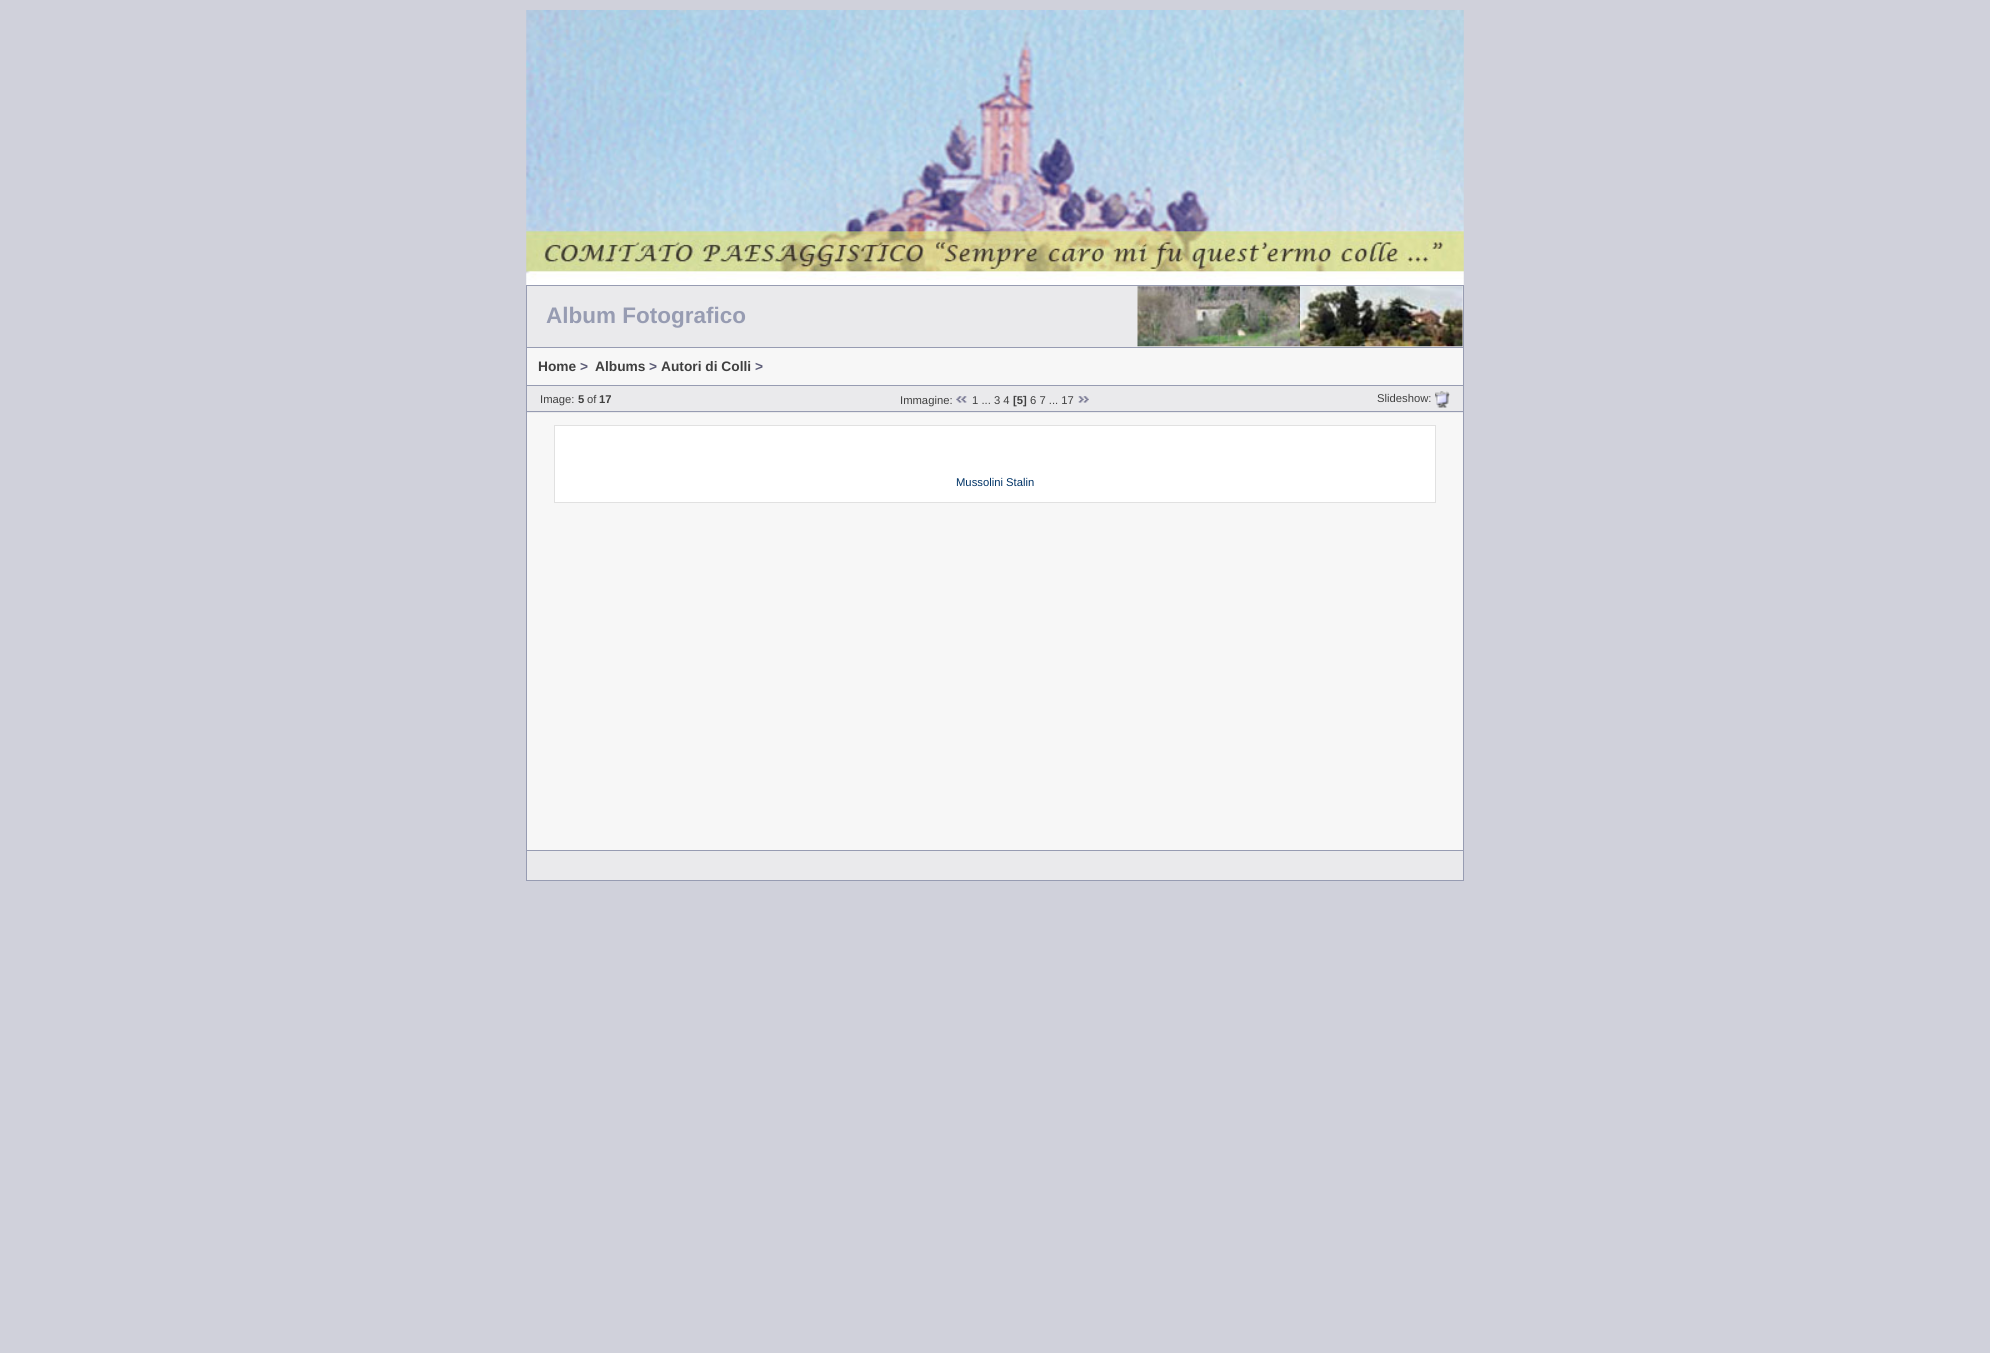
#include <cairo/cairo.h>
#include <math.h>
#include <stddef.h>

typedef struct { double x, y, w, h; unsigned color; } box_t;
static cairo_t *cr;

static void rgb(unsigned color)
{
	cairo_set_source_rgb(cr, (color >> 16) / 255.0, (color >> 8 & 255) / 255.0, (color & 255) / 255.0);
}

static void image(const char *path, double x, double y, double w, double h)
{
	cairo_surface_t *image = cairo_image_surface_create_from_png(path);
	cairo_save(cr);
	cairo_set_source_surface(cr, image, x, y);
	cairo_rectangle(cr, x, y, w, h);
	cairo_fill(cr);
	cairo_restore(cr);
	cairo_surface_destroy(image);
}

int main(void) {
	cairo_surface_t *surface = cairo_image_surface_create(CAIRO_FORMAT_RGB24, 1990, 1353);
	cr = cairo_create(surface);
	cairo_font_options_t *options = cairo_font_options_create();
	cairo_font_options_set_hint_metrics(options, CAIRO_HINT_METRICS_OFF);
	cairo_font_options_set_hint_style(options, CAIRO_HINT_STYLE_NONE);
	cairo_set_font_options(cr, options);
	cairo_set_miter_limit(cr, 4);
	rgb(0xd0d1db);
	cairo_paint(cr);
	image("img/1.png", 526, 10, 938, 275);
	rgb(0xeaeaec);
	cairo_rectangle(cr, 526.5, 285.5, 937, 62);
	cairo_fill_preserve(cr);
	rgb(0x979cb2);
	cairo_set_line_width(cr, 1);
	cairo_stroke(cr);
	image("img/2.png", 1137, 286, 163, 61);
	image("img/3.png", 1300, 286, 163, 61);
	{
		static const box_t items[] = {
			{527, 348, 936, 37, 0xf7f7f7},
			{1463, 348, 1, 502, 0x979cb2},
			{526, 385, 938, 1, 0x979cb2},
			{526, 348, 1, 38, 0x979cb2},
			{527, 386, 936, 27, 0xeaeaec},
			{526, 411, 938, 1, 0x979cb2},
			{526, 386, 1, 464, 0x979cb2},
		};
		for (size_t i = 0; i < sizeof items / sizeof *items; i++) {
			rgb(items[i].color);
			cairo_rectangle(cr, items[i].x, items[i].y, items[i].w, items[i].h);
			cairo_fill(cr);
		}
	}
	image("img/4.png", 956, 396, 11, 7);
	image("img/5.png", 1078, 396, 11, 7);
	image("img/6.png", 1435, 391, 15, 17);
	rgb(0xf7f7f7);
	cairo_rectangle(cr, 527, 413, 936, 437);
	cairo_fill(cr);
	rgb(0xffffff);
	cairo_rectangle(cr, 554.5, 425.5, 881, 77);
	cairo_fill_preserve(cr);
	rgb(0xe1e1e1);
	cairo_stroke(cr);
	rgb(0xeaeaec);
	cairo_rectangle(cr, 526.5, 850.5, 937, 30);
	cairo_fill_preserve(cr);
	rgb(0x979cb2);
	cairo_stroke(cr);
	cairo_select_font_face(cr, "Liberation Sans", CAIRO_FONT_SLANT_NORMAL, CAIRO_FONT_WEIGHT_BOLD);
	cairo_set_font_size(cr, 22.5);
	cairo_move_to(cr, 546, 323);
	cairo_show_text(cr, "Album Fotografico");
	cairo_set_font_size(cr, 13.75);
	rgb(0x404040);
	cairo_move_to(cr, 538, 371);
	cairo_show_text(cr, "Home");
	rgb(0x5d5d78);
	cairo_move_to(cr, 580, 371);
	cairo_show_text(cr, ">");
	rgb(0x404040);
	cairo_move_to(cr, 595, 371);
	cairo_show_text(cr, "Albums");
	rgb(0x5d5d78);
	cairo_move_to(cr, 649, 371);
	cairo_show_text(cr, ">");
	rgb(0x404040);
	cairo_move_to(cr, 661, 371);
	cairo_show_text(cr, "Autori di Colli");
	rgb(0x5d5d78);
	cairo_move_to(cr, 755, 371);
	cairo_show_text(cr, ">");
	cairo_select_font_face(cr, "Liberation Sans", CAIRO_FONT_SLANT_NORMAL, CAIRO_FONT_WEIGHT_NORMAL);
	cairo_set_font_size(cr, 11.25);
	rgb(0x404040);
	cairo_move_to(cr, 540, 403);
	cairo_show_text(cr, "Image:");
	cairo_select_font_face(cr, "Liberation Sans", CAIRO_FONT_SLANT_NORMAL, CAIRO_FONT_WEIGHT_BOLD);
	cairo_move_to(cr, 578, 403);
	cairo_show_text(cr, "5");
	cairo_select_font_face(cr, "Liberation Sans", CAIRO_FONT_SLANT_NORMAL, CAIRO_FONT_WEIGHT_NORMAL);
	cairo_move_to(cr, 587, 403);
	cairo_show_text(cr, "of");
	cairo_select_font_face(cr, "Liberation Sans", CAIRO_FONT_SLANT_NORMAL, CAIRO_FONT_WEIGHT_BOLD);
	cairo_move_to(cr, 599, 403);
	cairo_show_text(cr, "17");
	cairo_select_font_face(cr, "Liberation Sans", CAIRO_FONT_SLANT_NORMAL, CAIRO_FONT_WEIGHT_NORMAL);
	cairo_move_to(cr, 900, 404);
	cairo_show_text(cr, "Immagine:");
	cairo_move_to(cr, 972, 404);
	cairo_show_text(cr, "1 ... 3 4");
	cairo_select_font_face(cr, "Liberation Sans", CAIRO_FONT_SLANT_NORMAL, CAIRO_FONT_WEIGHT_BOLD);
	cairo_move_to(cr, 1013, 404);
	cairo_show_text(cr, "[5]");
	cairo_select_font_face(cr, "Liberation Sans", CAIRO_FONT_SLANT_NORMAL, CAIRO_FONT_WEIGHT_NORMAL);
	cairo_move_to(cr, 1030, 404);
	cairo_show_text(cr, "6 7 ... 17");
	cairo_move_to(cr, 1377, 402);
	cairo_show_text(cr, "Slideshow:");
	rgb(0x003366);
	cairo_move_to(cr, 956, 486);
	cairo_show_text(cr, "Mussolini Stalin");
	cairo_surface_write_to_png(surface, "page.png");
	cairo_font_options_destroy(options);
	cairo_destroy(cr);
	cairo_surface_destroy(surface);
	return 0;
}
